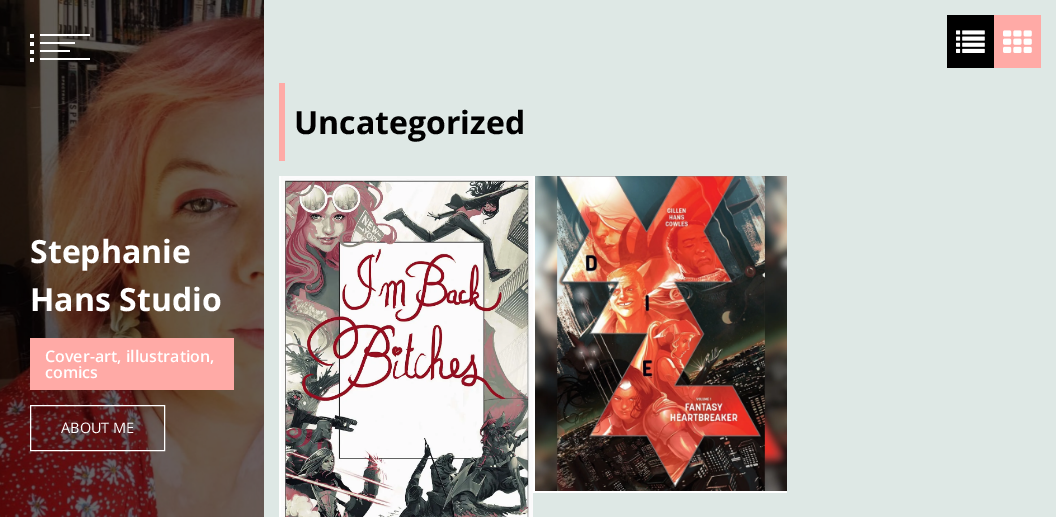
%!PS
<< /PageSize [1056 517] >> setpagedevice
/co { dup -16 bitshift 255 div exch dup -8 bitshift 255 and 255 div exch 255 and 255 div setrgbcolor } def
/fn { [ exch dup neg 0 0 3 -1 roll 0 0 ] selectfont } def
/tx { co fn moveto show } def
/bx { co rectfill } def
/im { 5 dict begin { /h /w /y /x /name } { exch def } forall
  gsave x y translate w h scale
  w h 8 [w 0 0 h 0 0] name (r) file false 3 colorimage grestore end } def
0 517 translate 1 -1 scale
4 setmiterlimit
0 0 1056 517 16#DEE8E5 bx
947 15 47 53 16#000000 bx
(media/1.raw) 956 30 29 23 im
994 15 47 53 16#FFAAA6 bx
(media/2.raw) 1003 30 29 23 im
279 83 6 78 16#FFAAA6 bx
279 176 2 341 16#FFFFFF bx
(media/3.raw) 281 176 252 341 im
(media/4.raw) 283 176 250 341 im
533 491 254 2 16#FFFFFF bx
533 176 2 317 16#FFFFFF bx
(media/5.raw) 535 176 252 315 im
(media/6.raw) 0 0 264 517 im
30 34 4 4 16#FFFFFF bx
40 34 50 2 16#FFFFFF bx
30 42 4 4 16#FFFFFF bx
40 42 35 2 16#FFFFFF bx
30 50 4 4 16#FFFFFF bx
40 50 30 2 16#FFFFFF bx
30 58 4 4 16#FFFFFF bx
40 58 50 2 16#FFFFFF bx
30 338 204 52 16#FFAAA6 bx
16#FFFFFF co
30.5 405.5 134 45 rectstroke
(Uncategorized) 294 134 /OpenSans-Bold 32 16#000000 tx
(Stephanie) 30 263 /OpenSans-Bold 32 16#FFFFFF tx
(Hans Studio) 30 311 /OpenSans-Bold 32 16#FFFFFF tx
(Cover-art, illustration,) 45 362 /OpenSans-SemiBold 16 16#FFFFFF tx
(comics) 45 378 /OpenSans-SemiBold 16 16#FFFFFF tx
(ABOUT ME) 61 433 /OpenSans-Regular 14.5 16#FFFFFF tx
showpage
